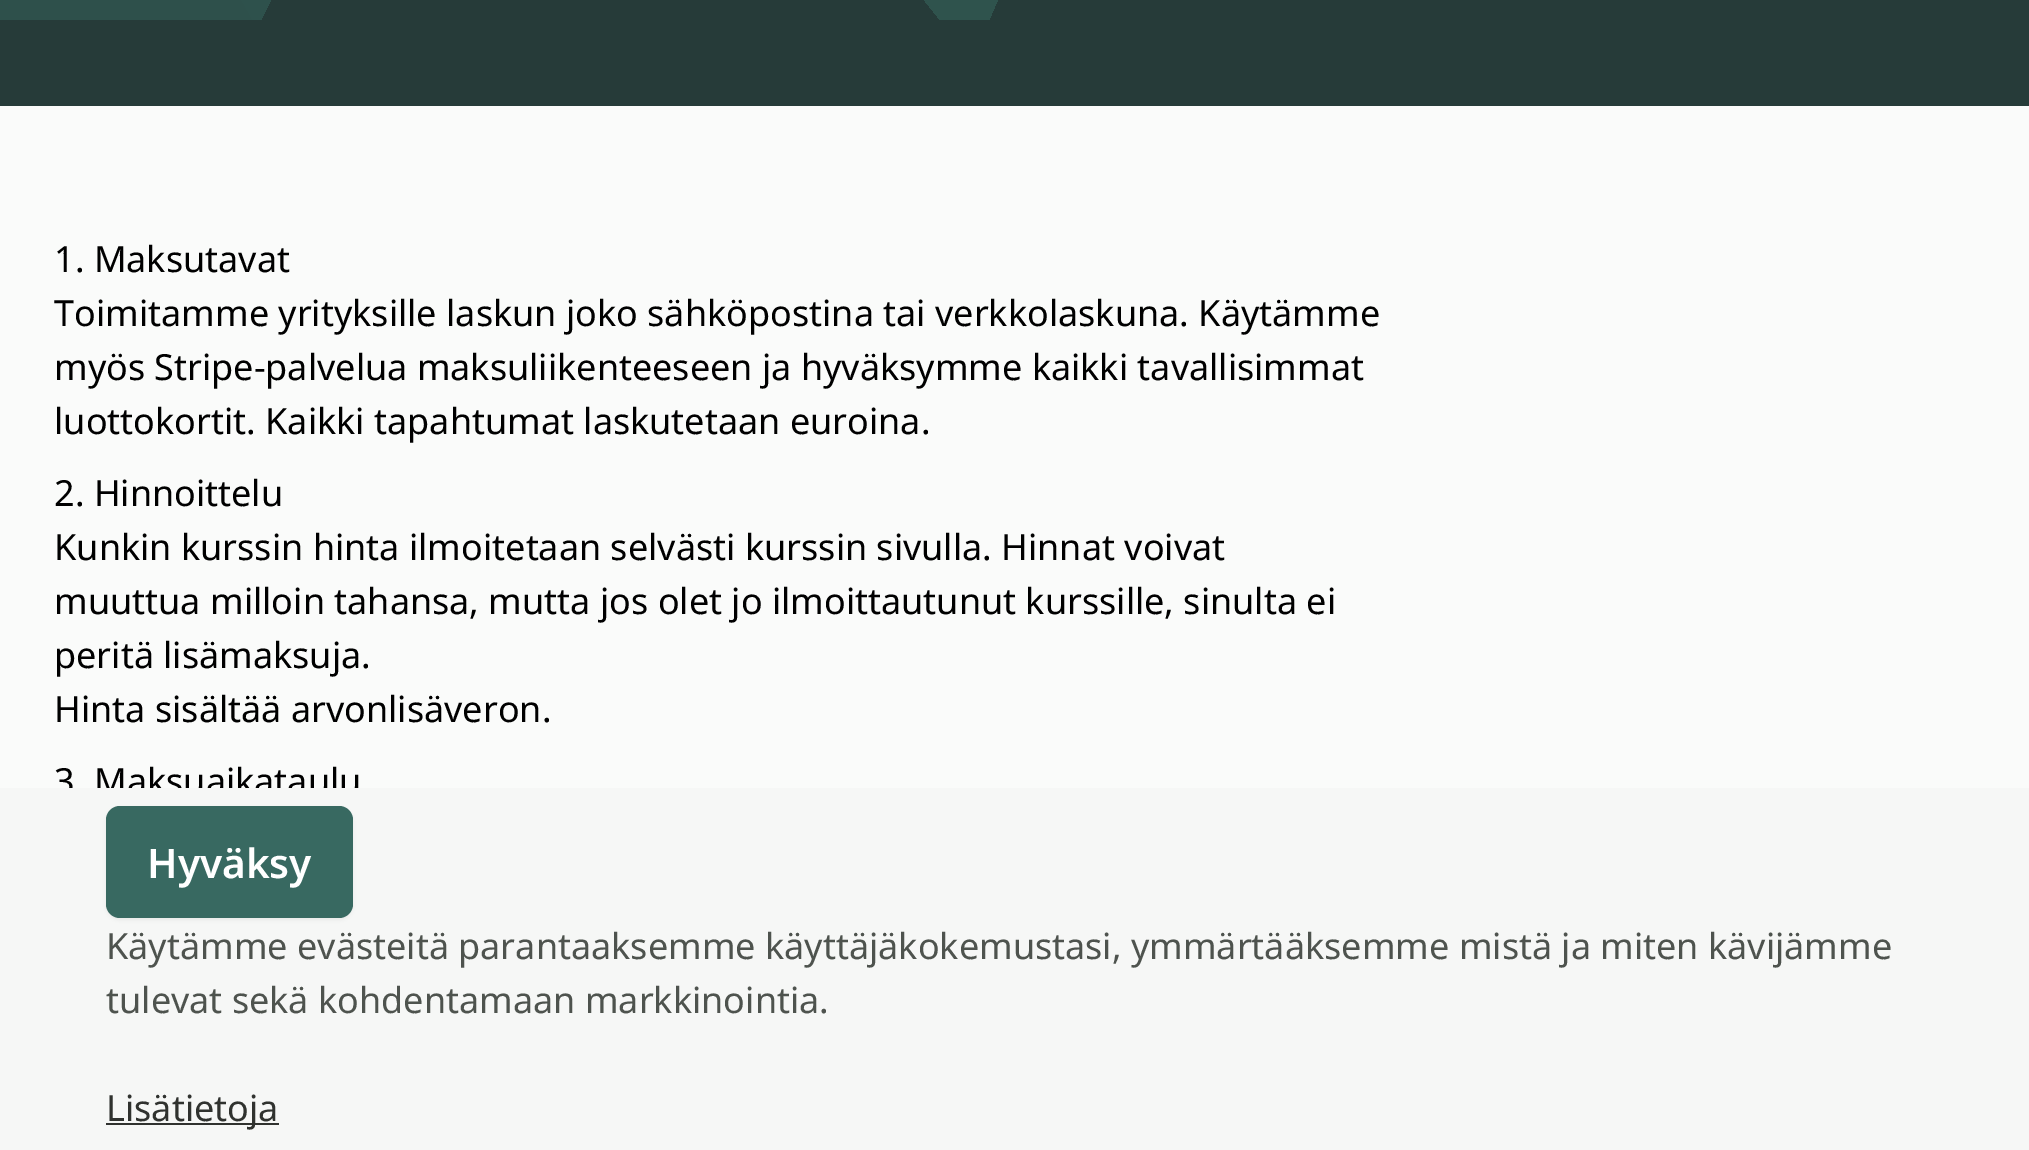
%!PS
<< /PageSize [2029 1150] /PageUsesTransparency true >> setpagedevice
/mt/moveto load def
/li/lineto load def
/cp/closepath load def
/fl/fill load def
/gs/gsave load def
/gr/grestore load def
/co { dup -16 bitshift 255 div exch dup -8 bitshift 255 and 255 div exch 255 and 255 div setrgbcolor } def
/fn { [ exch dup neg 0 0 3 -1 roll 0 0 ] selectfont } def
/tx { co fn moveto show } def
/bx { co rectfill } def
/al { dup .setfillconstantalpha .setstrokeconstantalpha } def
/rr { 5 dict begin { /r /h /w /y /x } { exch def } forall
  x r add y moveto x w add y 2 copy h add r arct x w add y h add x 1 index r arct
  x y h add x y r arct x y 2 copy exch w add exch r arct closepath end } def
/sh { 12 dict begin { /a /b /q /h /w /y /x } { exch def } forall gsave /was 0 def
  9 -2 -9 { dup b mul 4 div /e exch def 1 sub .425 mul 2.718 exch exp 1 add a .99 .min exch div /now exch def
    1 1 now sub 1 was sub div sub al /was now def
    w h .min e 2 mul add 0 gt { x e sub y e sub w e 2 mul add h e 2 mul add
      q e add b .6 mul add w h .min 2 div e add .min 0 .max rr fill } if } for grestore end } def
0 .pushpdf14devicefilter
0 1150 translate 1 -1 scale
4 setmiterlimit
0 0 2029 1150 16#FAFBFA bx
0 0 2029 106 16#263B39 bx
gs
0 0 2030 20 rectclip
gs 522 -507 mt 158 227 li -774 -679 li -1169 -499 li -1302 -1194 li -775 -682 li -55 -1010 li -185 -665 li -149 -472 li 70 -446 li 575 -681 li 992 -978 li 1114 -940 li 1180 -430 li 972 60 li cp clip newpath
<< /ShadingType 2 /ColorSpace /DeviceRGB /Coords [-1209 -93 1079 -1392] /Extend [true true] /Function << /FunctionType 2 /Domain [0 1] /C0 [.173 .294 .278] /C1 [.192 .341 .318] /N 1 >> >> shfill gr
gr
(1. Maksutavat) 54 272 /NotoSans-Regular 36 16#000000 tx
(Toimitamme yrityksille laskun joko sähköpostina tai verkkolaskuna. Käytämme) 54 326 /NotoSans-Regular 36 16#000000 tx
(myös Stripe-palvelua maksuliikenteeseen ja hyväksymme kaikki tavallisimmat) 54 380 /NotoSans-Regular 36 16#000000 tx
(luottokortit. Kaikki tapahtumat laskutetaan euroina.) 54 434 /NotoSans-Regular 36 16#000000 tx
(2. Hinnoittelu) 54 506 /NotoSans-Regular 36 16#000000 tx
(Kunkin kurssin hinta ilmoitetaan selvästi kurssin sivulla. Hinnat voivat) 54 560 /NotoSans-Regular 36 16#000000 tx
(muuttua milloin tahansa, mutta jos olet jo ilmoittautunut kurssille, sinulta ei) 54 614 /NotoSans-Regular 36 16#000000 tx
(peritä lisämaksuja.) 54 668 /NotoSans-Regular 36 16#000000 tx
(Hinta sisältää arvonlisäveron.) 54 722 /NotoSans-Regular 36 16#000000 tx
(3) 54 794 /NotoSans-Regular 36 16#000000 tx
(Maksuaikataulu) 94 794 /NotoSans-Regular 36 16#000000 tx
0 788 2029 362 16#F6F7F6 bx
16#000000 co
106 808 247 112 14 2 .05 sh
16#386961 co
106 806 247 112 14 rr fl
(Hyväksy) 147 878 /NotoSans-SemiBold 40.5 16#FFFFFF tx
(Käytämme evästeitä parantaaksemme käyttäjäkokemustasi, ymmärtääksemme mistä ja miten kävijämme) 106 959 /NotoSans-Regular 36 16#4E534E tx
(tulevat sekä kohdentamaan markkinointia.) 106 1013 /NotoSans-Regular 36 16#4E534E tx
106 1123 173 2 16#30322F bx
(Lisätietoja) 106 1121 /NotoSans-Regular 36 16#30322F tx
.poppdf14devicefilter showpage
